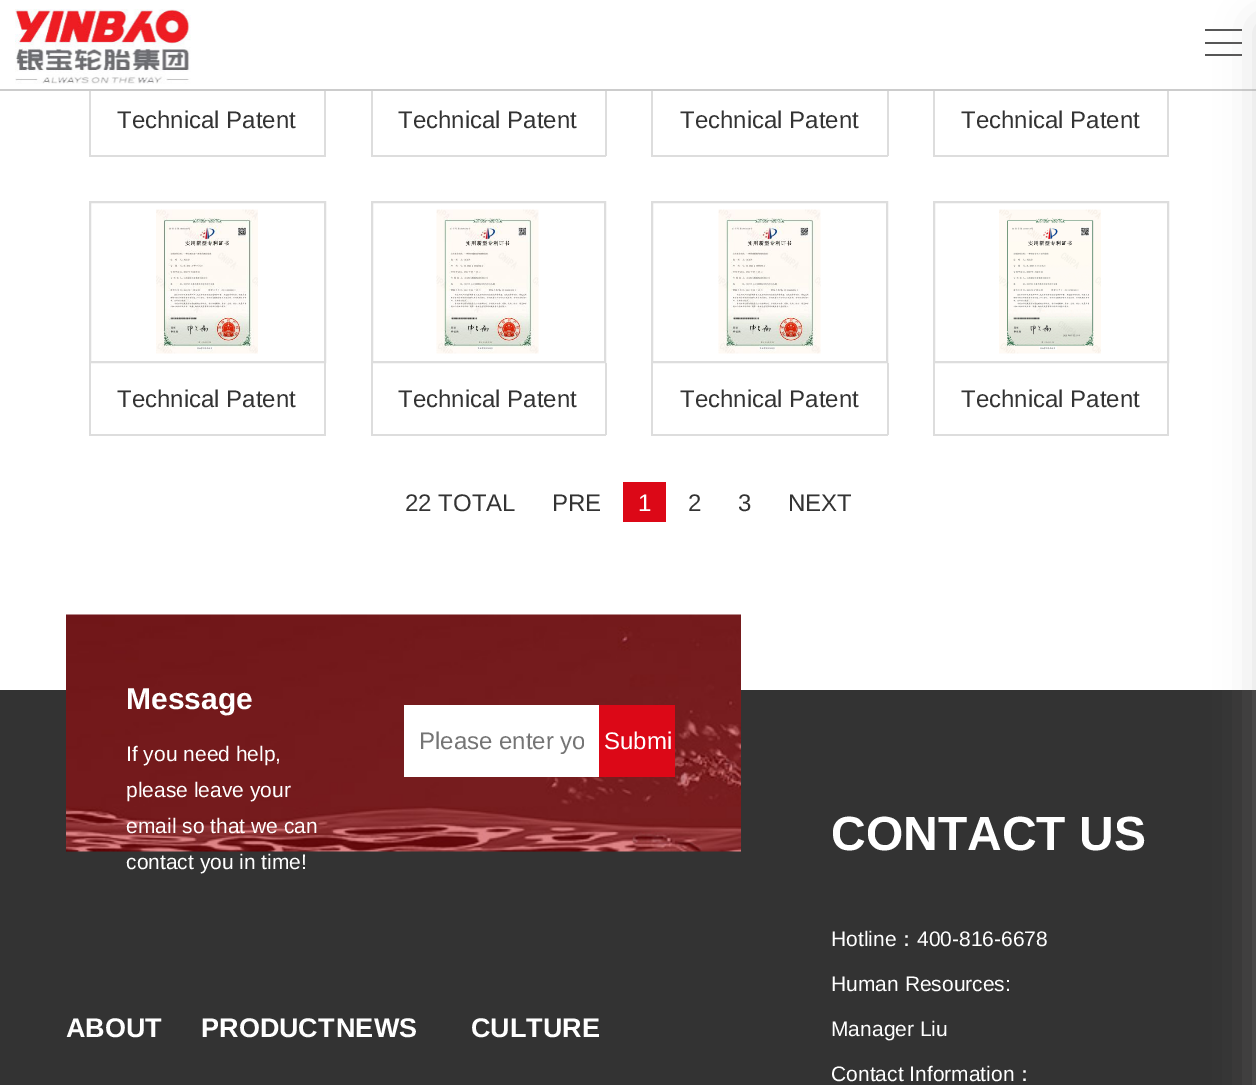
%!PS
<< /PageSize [1256 1085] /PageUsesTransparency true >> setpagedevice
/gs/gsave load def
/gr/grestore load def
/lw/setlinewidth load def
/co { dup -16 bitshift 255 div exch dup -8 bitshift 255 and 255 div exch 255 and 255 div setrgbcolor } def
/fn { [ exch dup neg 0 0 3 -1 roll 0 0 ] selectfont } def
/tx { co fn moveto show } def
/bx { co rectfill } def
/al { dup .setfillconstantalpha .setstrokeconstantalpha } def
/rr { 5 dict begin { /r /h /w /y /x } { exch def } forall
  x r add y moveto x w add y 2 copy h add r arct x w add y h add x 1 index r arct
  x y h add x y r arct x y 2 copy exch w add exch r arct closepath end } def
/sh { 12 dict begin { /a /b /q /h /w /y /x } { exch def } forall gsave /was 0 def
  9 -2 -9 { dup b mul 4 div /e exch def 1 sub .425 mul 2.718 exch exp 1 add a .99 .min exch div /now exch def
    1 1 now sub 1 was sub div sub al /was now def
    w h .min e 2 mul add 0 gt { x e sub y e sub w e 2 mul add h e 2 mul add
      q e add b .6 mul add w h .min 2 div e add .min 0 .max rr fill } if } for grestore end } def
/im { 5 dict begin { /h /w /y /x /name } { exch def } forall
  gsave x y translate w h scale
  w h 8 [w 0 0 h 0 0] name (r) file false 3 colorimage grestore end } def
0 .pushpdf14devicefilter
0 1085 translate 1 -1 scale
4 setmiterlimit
0 0 1256 1085 16#FFFFFF bx
324 84 2 72 16#DDDDDD bx
89 155 237 2 16#DDDDDD bx
89 84 2 72 16#DDDDDD bx
605 84 2 72 16#DDDDDD bx
371 155 235 2 16#DDDDDD bx
371 84 2 72 16#DDDDDD bx
887 84 2 72 16#DDDDDD bx
651 155 237 2 16#DDDDDD bx
651 84 2 72 16#DDDDDD bx
1167 84 2 72 16#DDDDDD bx
933 155 236 2 16#DDDDDD bx
933 84 2 72 16#DDDDDD bx
0 89 1256 2 16#CCCCCC bx
1205 42 37 2 16#555555 bx
1205 29 37 2 16#555555 bx
1205 54 37 2 16#555555 bx
0 690 1256 395 16#333333 bx
16#A7A5A5 co
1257 23 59 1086 0 20 .38 sh
89 84 1080 5 16#FFFFFF bx
(media/1.raw) 15 9 176 75 im
16#DDDDDD co
2 lw
90 202 235 160 rectstroke
(media/2.raw) 156 209 102 145 im
324 363 2 72 16#DDDDDD bx
89 434 237 2 16#DDDDDD bx
89 363 2 72 16#DDDDDD bx
372 202 233 160 rectstroke
(media/3.raw) 436 209 103 145 im
605 363 2 72 16#DDDDDD bx
371 434 235 2 16#DDDDDD bx
371 363 2 72 16#DDDDDD bx
652 202 235 160 rectstroke
(media/4.raw) 718 209 103 145 im
887 363 2 72 16#DDDDDD bx
651 434 237 2 16#DDDDDD bx
651 363 2 72 16#DDDDDD bx
934 202 234 160 rectstroke
(media/5.raw) 999 209 102 145 im
1167 363 2 72 16#DDDDDD bx
933 434 236 2 16#DDDDDD bx
933 363 2 72 16#DDDDDD bx
623 482 43 40 16#DC0817 bx
(media/6.raw) 66 614 675 238 im
404 705 195 72 16#FFFFFF bx
599 705 76 72 16#DC0817 bx
(Technical Patent) 117 128 /LiberationSans-Regular 24 16#333333 tx
(Technical Patent) 398 128 /LiberationSans-Regular 24 16#333333 tx
(Technical Patent) 680 128 /LiberationSans-Regular 24 16#333333 tx
(Technical Patent) 961 128 /LiberationSans-Regular 24 16#333333 tx
(Technical Patent) 117 407 /LiberationSans-Regular 24 16#333333 tx
(Technical Patent) 398 407 /LiberationSans-Regular 24 16#333333 tx
(Technical Patent) 680 407 /LiberationSans-Regular 24 16#333333 tx
(Technical Patent) 961 407 /LiberationSans-Regular 24 16#333333 tx
(22 TOTAL) 405 511 /LiberationSans-Regular 24 16#333333 tx
(PRE) 552 511 /LiberationSans-Regular 24 16#333333 tx
(1) 638 511 /LiberationSans-Regular 24 16#FFFFFF tx
(2) 688 511 /LiberationSans-Regular 24 16#333333 tx
(3) 738 511 /LiberationSans-Regular 24 16#333333 tx
(NEXT) 788 511 /LiberationSans-Regular 24 16#333333 tx
(Message) 126 709 /LiberationSans-Bold 30 16#FFFFFF tx
(If you need help,) 126 761 /LiberationSans-Regular 21 16#FFFFFF tx
(please leave your) 126 797 /LiberationSans-Regular 21 16#FFFFFF tx
(email so that we can) 126 833 /LiberationSans-Regular 21 16#FFFFFF tx
(contact you in time!) 126 869 /LiberationSans-Regular 21 16#FFFFFF tx
gs
419 728 165 27 rectclip
(Please enter yo) 419 749 /LiberationSans-Regular 24 16#757575 tx
gr
(Submi) 604 749 /LiberationSans-Regular 24 16#FFFFFF tx
(ABOUT) 66 1037 /LiberationSans-Bold 27 16#FFFFFF tx
(PRODUCT) 201 1037 /LiberationSans-Bold 27 16#FFFFFF tx
(NEWS) 336 1037 /LiberationSans-Bold 27 16#FFFFFF tx
(CULTURE) 471 1037 /LiberationSans-Bold 27 16#FFFFFF tx
(CONTACT US) 831 850 /LiberationSans-Bold 48 16#FFFFFF tx
(Hotline) 831 946 /LiberationSans-Regular 21 16#FFFFFF tx
(：) 896 946 /WenQuanYiZenHei-Medium 21 16#FFFFFF tx
(400-816-6678) 917 946 /LiberationSans-Regular 21 16#FFFFFF tx
(Human Resources:) 831 991 /LiberationSans-Regular 21 16#FFFFFF tx
(Manager Liu) 831 1036 /LiberationSans-Regular 21 16#FFFFFF tx
(Contact Information) 831 1081 /LiberationSans-Regular 21 16#FFFFFF tx
(：) 1014 1081 /WenQuanYiZenHei-Medium 21 16#FFFFFF tx
.poppdf14devicefilter showpage
